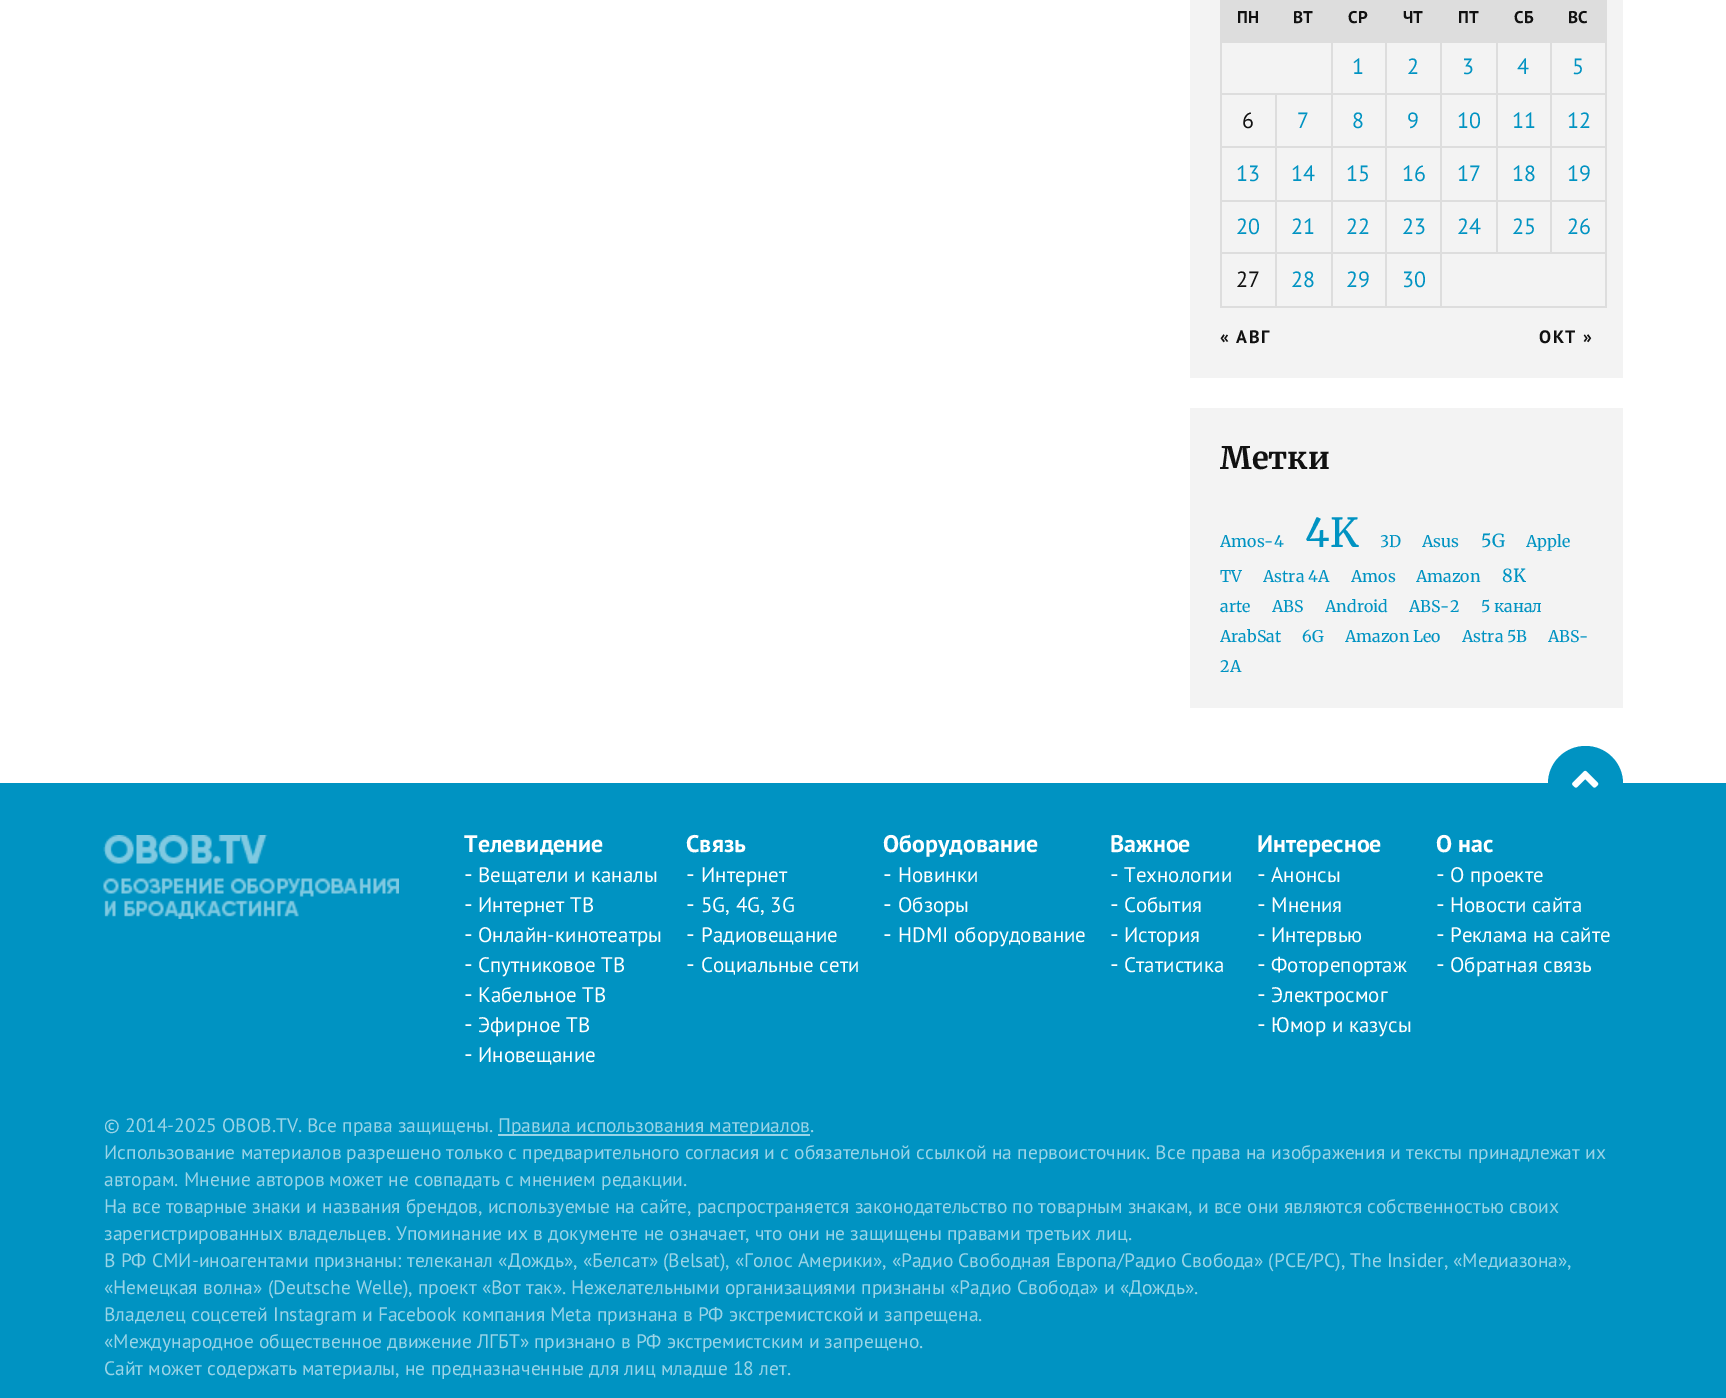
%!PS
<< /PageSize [1726 1398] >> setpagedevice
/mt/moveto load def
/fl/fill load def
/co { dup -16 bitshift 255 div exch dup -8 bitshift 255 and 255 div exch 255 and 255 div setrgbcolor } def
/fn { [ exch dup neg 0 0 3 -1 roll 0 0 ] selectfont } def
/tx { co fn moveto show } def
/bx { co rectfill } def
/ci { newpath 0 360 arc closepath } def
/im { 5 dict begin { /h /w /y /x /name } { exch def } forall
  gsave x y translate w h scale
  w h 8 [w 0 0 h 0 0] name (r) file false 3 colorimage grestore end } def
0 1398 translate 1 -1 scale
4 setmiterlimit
0 0 1726 1398 16#FFFFFF bx
1190 0 433 378 16#F3F3F3 bx
1222 0 385 41 16#DDDDDD bx
1605 41 2 267 16#DDDDDD bx
1550 252 57 2 16#DDDDDD bx
1550 200 2 54 16#DDDDDD bx
1550 200 57 2 16#DDDDDD bx
1550 146 2 55 16#DDDDDD bx
1550 146 57 2 16#DDDDDD bx
1550 93 2 54 16#DDDDDD bx
1550 93 57 2 16#DDDDDD bx
1550 41 2 54 16#DDDDDD bx
1496 252 55 2 16#DDDDDD bx
1496 200 2 54 16#DDDDDD bx
1496 200 55 2 16#DDDDDD bx
1496 146 2 55 16#DDDDDD bx
1496 146 55 2 16#DDDDDD bx
1496 93 2 54 16#DDDDDD bx
1496 93 55 2 16#DDDDDD bx
1496 41 2 54 16#DDDDDD bx
1440 306 167 2 16#DDDDDD bx
1440 252 2 56 16#DDDDDD bx
1440 252 57 2 16#DDDDDD bx
1440 200 2 54 16#DDDDDD bx
1440 200 57 2 16#DDDDDD bx
1440 146 2 55 16#DDDDDD bx
1440 146 57 2 16#DDDDDD bx
1440 93 2 54 16#DDDDDD bx
1440 93 57 2 16#DDDDDD bx
1440 41 2 54 16#DDDDDD bx
1385 306 57 2 16#DDDDDD bx
1385 252 2 56 16#DDDDDD bx
1385 252 57 2 16#DDDDDD bx
1385 200 2 54 16#DDDDDD bx
1385 200 57 2 16#DDDDDD bx
1385 146 2 55 16#DDDDDD bx
1385 146 57 2 16#DDDDDD bx
1385 93 2 54 16#DDDDDD bx
1385 93 57 2 16#DDDDDD bx
1385 41 2 54 16#DDDDDD bx
1331 306 55 2 16#DDDDDD bx
1331 252 2 56 16#DDDDDD bx
1331 252 55 2 16#DDDDDD bx
1331 200 2 54 16#DDDDDD bx
1331 200 55 2 16#DDDDDD bx
1331 146 2 55 16#DDDDDD bx
1331 146 55 2 16#DDDDDD bx
1331 93 2 54 16#DDDDDD bx
1331 93 55 2 16#DDDDDD bx
1331 41 2 54 16#DDDDDD bx
1275 306 57 2 16#DDDDDD bx
1275 252 2 56 16#DDDDDD bx
1275 252 57 2 16#DDDDDD bx
1275 200 2 54 16#DDDDDD bx
1275 200 57 2 16#DDDDDD bx
1275 146 2 55 16#DDDDDD bx
1275 146 57 2 16#DDDDDD bx
1275 93 2 54 16#DDDDDD bx
1220 306 57 2 16#DDDDDD bx
1220 252 2 56 16#DDDDDD bx
1220 252 57 2 16#DDDDDD bx
1220 200 2 54 16#DDDDDD bx
1220 200 57 2 16#DDDDDD bx
1220 146 2 55 16#DDDDDD bx
1220 146 57 2 16#DDDDDD bx
1220 93 2 54 16#DDDDDD bx
1220 93 112 2 16#DDDDDD bx
1220 41 2 54 16#DDDDDD bx
1220 41 387 2 16#DDDDDD bx
1220 0 2 42 16#DDDDDD bx
1190 408 433 300 16#F3F3F3 bx
0 783 1726 615 16#0093C2 bx
1585.5 783.5 37.5 ci fl
(media/1.raw) 1572 770 27 18 im
(media/2.raw) 103 835 296 84 im
498 1134 312 2 16#99D4E7 bx
(ПН) 1237 23 /PTSans-Bold 17 16#111111 tx
(ВТ) 1293 23 /PTSans-Bold 17 16#111111 tx
(СР) 1348 23 /PTSans-Bold 17 16#111111 tx
(ЧТ) 1403 23 /PTSans-Bold 17 16#111111 tx
(ПТ) 1458 23 /PTSans-Bold 17 16#111111 tx
(СБ) 1514 23 /PTSans-Bold 17 16#111111 tx
(ВС) 1568 23 /PTSans-Bold 17 16#111111 tx
(1) 1352 74 /PTSans-Regular 22 16#0093C2 tx
(2) 1407 74 /PTSans-Regular 22 16#0093C2 tx
(3) 1462 74 /PTSans-Regular 22 16#0093C2 tx
(4) 1517 74 /PTSans-Regular 22 16#0093C2 tx
(5) 1572 74 /PTSans-Regular 22 16#0093C2 tx
(6) 1242 128 /PTSans-Regular 22 16#111111 tx
(7) 1297 128 /PTSans-Regular 22 16#0093C2 tx
(8) 1352 128 /PTSans-Regular 22 16#0093C2 tx
(9) 1407 128 /PTSans-Regular 22 16#0093C2 tx
(10) 1457 128 /PTSans-Regular 22 16#0093C2 tx
(11) 1512 128 /PTSans-Regular 22 16#0093C2 tx
(12) 1567 128 /PTSans-Regular 22 16#0093C2 tx
(13) 1236 181 /PTSans-Regular 22 16#0093C2 tx
(14) 1291 181 /PTSans-Regular 22 16#0093C2 tx
(15) 1346 181 /PTSans-Regular 22 16#0093C2 tx
(16) 1402 181 /PTSans-Regular 22 16#0093C2 tx
(17) 1457 181 /PTSans-Regular 22 16#0093C2 tx
(18) 1512 181 /PTSans-Regular 22 16#0093C2 tx
(19) 1567 181 /PTSans-Regular 22 16#0093C2 tx
(20) 1236 234 /PTSans-Regular 22 16#0093C2 tx
(21) 1291 234 /PTSans-Regular 22 16#0093C2 tx
(22) 1346 234 /PTSans-Regular 22 16#0093C2 tx
(23) 1402 234 /PTSans-Regular 22 16#0093C2 tx
(24) 1457 234 /PTSans-Regular 22 16#0093C2 tx
(25) 1512 234 /PTSans-Regular 22 16#0093C2 tx
(26) 1567 234 /PTSans-Regular 22 16#0093C2 tx
(27) 1236 287 /PTSans-Regular 22 16#111111 tx
(28) 1291 287 /PTSans-Regular 22 16#0093C2 tx
(29) 1346 287 /PTSans-Regular 22 16#0093C2 tx
(30) 1402 287 /PTSans-Regular 22 16#0093C2 tx
/PTSans-Bold 18 fn
16#111111 co
1220 343 mt 1.5 0 (« АВГ) ashow
1539 343 mt 1.5 0 (ОКТ ») ashow
(Метки) 1220 469 /Merriweather-Bold 31 16#111111 tx
(Amos-4) 1220 547 /Merriweather-Regular 16 16#0093C2 tx
(4K) 1305 547 /Merriweather-Regular 40 16#0093C2 tx
(3D) 1380 547 /Merriweather-Regular 16 16#0093C2 tx
(Asus) 1422 547 /Merriweather-Regular 16 16#0093C2 tx
(5G) 1481 547 /Merriweather-Regular 18 16#0093C2 tx
(Apple) 1526 547 /Merriweather-Regular 16 16#0093C2 tx
(TV) 1220 582 /Merriweather-Regular 16 16#0093C2 tx
(Astra 4A) 1263 582 /Merriweather-Regular 16 16#0093C2 tx
(Amos) 1351 582 /Merriweather-Regular 16 16#0093C2 tx
(Amazon) 1416 582 /Merriweather-Regular 16 16#0093C2 tx
(8K) 1502 582 /Merriweather-Regular 18 16#0093C2 tx
(arte) 1220 612 /Merriweather-Regular 16 16#0093C2 tx
(ABS) 1272 612 /Merriweather-Regular 16 16#0093C2 tx
(Android) 1325 612 /Merriweather-Regular 16 16#0093C2 tx
(ABS-2) 1409 612 /Merriweather-Regular 16 16#0093C2 tx
(5 канал) 1481 612 /Merriweather-Regular 16 16#0093C2 tx
(ArabSat) 1220 642 /Merriweather-Regular 16 16#0093C2 tx
(6G) 1302 642 /Merriweather-Regular 16 16#0093C2 tx
(Amazon Leo) 1345 642 /Merriweather-Regular 16 16#0093C2 tx
(Astra 5B) 1462 642 /Merriweather-Regular 16 16#0093C2 tx
(ABS-) 1548 642 /Merriweather-Regular 16 16#0093C2 tx
(2A) 1220 672 /Merriweather-Regular 16 16#0093C2 tx
(Телевидение) 464 852 /PTSans-Bold 24 16#FFFFFF tx
(-) 464 882 /PTSans-Regular 24 16#FFFFFF tx
(Вещатели и каналы) 478 882 /PTSans-Regular 21 16#FFFFFF tx
(-) 464 912 /PTSans-Regular 24 16#FFFFFF tx
(Интернет ТВ) 478 912 /PTSans-Regular 21 16#FFFFFF tx
(-) 464 942 /PTSans-Regular 24 16#FFFFFF tx
(Онлайн-кинотеатры) 478 942 /PTSans-Regular 21 16#FFFFFF tx
(-) 464 972 /PTSans-Regular 24 16#FFFFFF tx
(Спутниковое ТВ) 478 972 /PTSans-Regular 21 16#FFFFFF tx
(-) 464 1002 /PTSans-Regular 24 16#FFFFFF tx
(Кабельное ТВ) 478 1002 /PTSans-Regular 21 16#FFFFFF tx
(-) 464 1032 /PTSans-Regular 24 16#FFFFFF tx
(Эфирное ТВ) 478 1032 /PTSans-Regular 21 16#FFFFFF tx
(-) 464 1062 /PTSans-Regular 24 16#FFFFFF tx
(Иновещание) 478 1062 /PTSans-Regular 21 16#FFFFFF tx
(Связь) 686 852 /PTSans-Bold 24 16#FFFFFF tx
(-) 686 882 /PTSans-Regular 24 16#FFFFFF tx
(Интернет) 701 882 /PTSans-Regular 21 16#FFFFFF tx
(-) 686 912 /PTSans-Regular 24 16#FFFFFF tx
(5G, 4G, 3G) 701 912 /PTSans-Regular 21 16#FFFFFF tx
(-) 686 942 /PTSans-Regular 24 16#FFFFFF tx
(Радиовещание) 701 942 /PTSans-Regular 21 16#FFFFFF tx
(-) 686 972 /PTSans-Regular 24 16#FFFFFF tx
(Социальные сети) 701 972 /PTSans-Regular 21 16#FFFFFF tx
(Оборудование) 883 852 /PTSans-Bold 24 16#FFFFFF tx
(-) 883 882 /PTSans-Regular 24 16#FFFFFF tx
(Новинки) 898 882 /PTSans-Regular 21 16#FFFFFF tx
(-) 883 912 /PTSans-Regular 24 16#FFFFFF tx
(Обзоры) 898 912 /PTSans-Regular 21 16#FFFFFF tx
(-) 883 942 /PTSans-Regular 24 16#FFFFFF tx
(HDMI оборудование) 898 942 /PTSans-Regular 21 16#FFFFFF tx
(Важное) 1110 852 /PTSans-Bold 24 16#FFFFFF tx
(-) 1110 882 /PTSans-Regular 24 16#FFFFFF tx
(Технологии) 1124 882 /PTSans-Regular 21 16#FFFFFF tx
(-) 1110 912 /PTSans-Regular 24 16#FFFFFF tx
(События) 1124 912 /PTSans-Regular 21 16#FFFFFF tx
(-) 1110 942 /PTSans-Regular 24 16#FFFFFF tx
(История) 1124 942 /PTSans-Regular 21 16#FFFFFF tx
(-) 1110 972 /PTSans-Regular 24 16#FFFFFF tx
(Статистика) 1124 972 /PTSans-Regular 21 16#FFFFFF tx
(Интересное) 1257 852 /PTSans-Bold 24 16#FFFFFF tx
(-) 1257 882 /PTSans-Regular 24 16#FFFFFF tx
(Анонсы) 1271 882 /PTSans-Regular 21 16#FFFFFF tx
(-) 1257 912 /PTSans-Regular 24 16#FFFFFF tx
(Мнения) 1271 912 /PTSans-Regular 21 16#FFFFFF tx
(-) 1257 942 /PTSans-Regular 24 16#FFFFFF tx
(Интервью) 1271 942 /PTSans-Regular 21 16#FFFFFF tx
(-) 1257 972 /PTSans-Regular 24 16#FFFFFF tx
(Фоторепортаж) 1271 972 /PTSans-Regular 21 16#FFFFFF tx
(-) 1257 1002 /PTSans-Regular 24 16#FFFFFF tx
(Электросмог) 1271 1002 /PTSans-Regular 21 16#FFFFFF tx
(-) 1257 1032 /PTSans-Regular 24 16#FFFFFF tx
(Юмор и казусы) 1271 1032 /PTSans-Regular 21 16#FFFFFF tx
(О нас) 1436 852 /PTSans-Bold 24 16#FFFFFF tx
(-) 1436 882 /PTSans-Regular 24 16#FFFFFF tx
(О проекте) 1450 882 /PTSans-Regular 21 16#FFFFFF tx
(-) 1436 912 /PTSans-Regular 24 16#FFFFFF tx
(Новости сайта) 1450 912 /PTSans-Regular 21 16#FFFFFF tx
(-) 1436 942 /PTSans-Regular 24 16#FFFFFF tx
(Реклама на сайте) 1450 942 /PTSans-Regular 21 16#FFFFFF tx
(-) 1436 972 /PTSans-Regular 24 16#FFFFFF tx
(Обратная связь) 1450 972 /PTSans-Regular 21 16#FFFFFF tx
(© 2014-2025 OBOB.TV. Все права защищены.) 104 1132 /PTSans-Regular 19.5 16#99D4E7 tx
(Правила использования материалов.) 498 1132 /PTSans-Regular 19.5 16#99D4E7 tx
(Использование материалов разрешено только с предварительного согласия и с обязательной ссылкой на первоисточник. Все права на изображения и тексты принадлежат их) 104 1159 /PTSans-Regular 19.5 16#99D4E7 tx
(авторам. Мнение авторов может не совпадать с мнением редакции.) 104 1186 /PTSans-Regular 19.5 16#99D4E7 tx
(На все товарные знаки и названия брендов, используемые на сайте, распространяется законодательство по товарным знакам, и все они являются собственностью своих) 104 1213 /PTSans-Regular 19.5 16#99D4E7 tx
(зарегистрированных владельцев. Упоминание их в документе не означает, что они не защищены правами третьих лиц.) 104 1240 /PTSans-Regular 19.5 16#99D4E7 tx
(В РФ СМИ-иноагентами признаны: телеканал «Дождь», «Белсат» \(Belsat\), «Голос Америки», «Радио Свободная Европа/Радио Свобода» \(PCE/PC\), The Insider, «Медиазона»,) 104 1267 /PTSans-Regular 19.5 16#99D4E7 tx
(«Немецкая волна» \(Deutsche Welle\), проект «Вот так». Нежелательными организациями признаны «Радио Свобода» и «Дождь».) 104 1294 /PTSans-Regular 19.5 16#99D4E7 tx
(Владелец соцсетей Instagram и Facebook компания Metа признана в РФ экстремистской и запрещена.) 104 1321 /PTSans-Regular 19.5 16#99D4E7 tx
(«Международное общественное движение ЛГБТ» признано в РФ экстремистским и запрещено.) 104 1348 /PTSans-Regular 19.5 16#99D4E7 tx
(Сайт может содержать материалы, не предназначенные для лиц младше 18 лет.) 104 1375 /PTSans-Regular 19.5 16#99D4E7 tx
showpage
